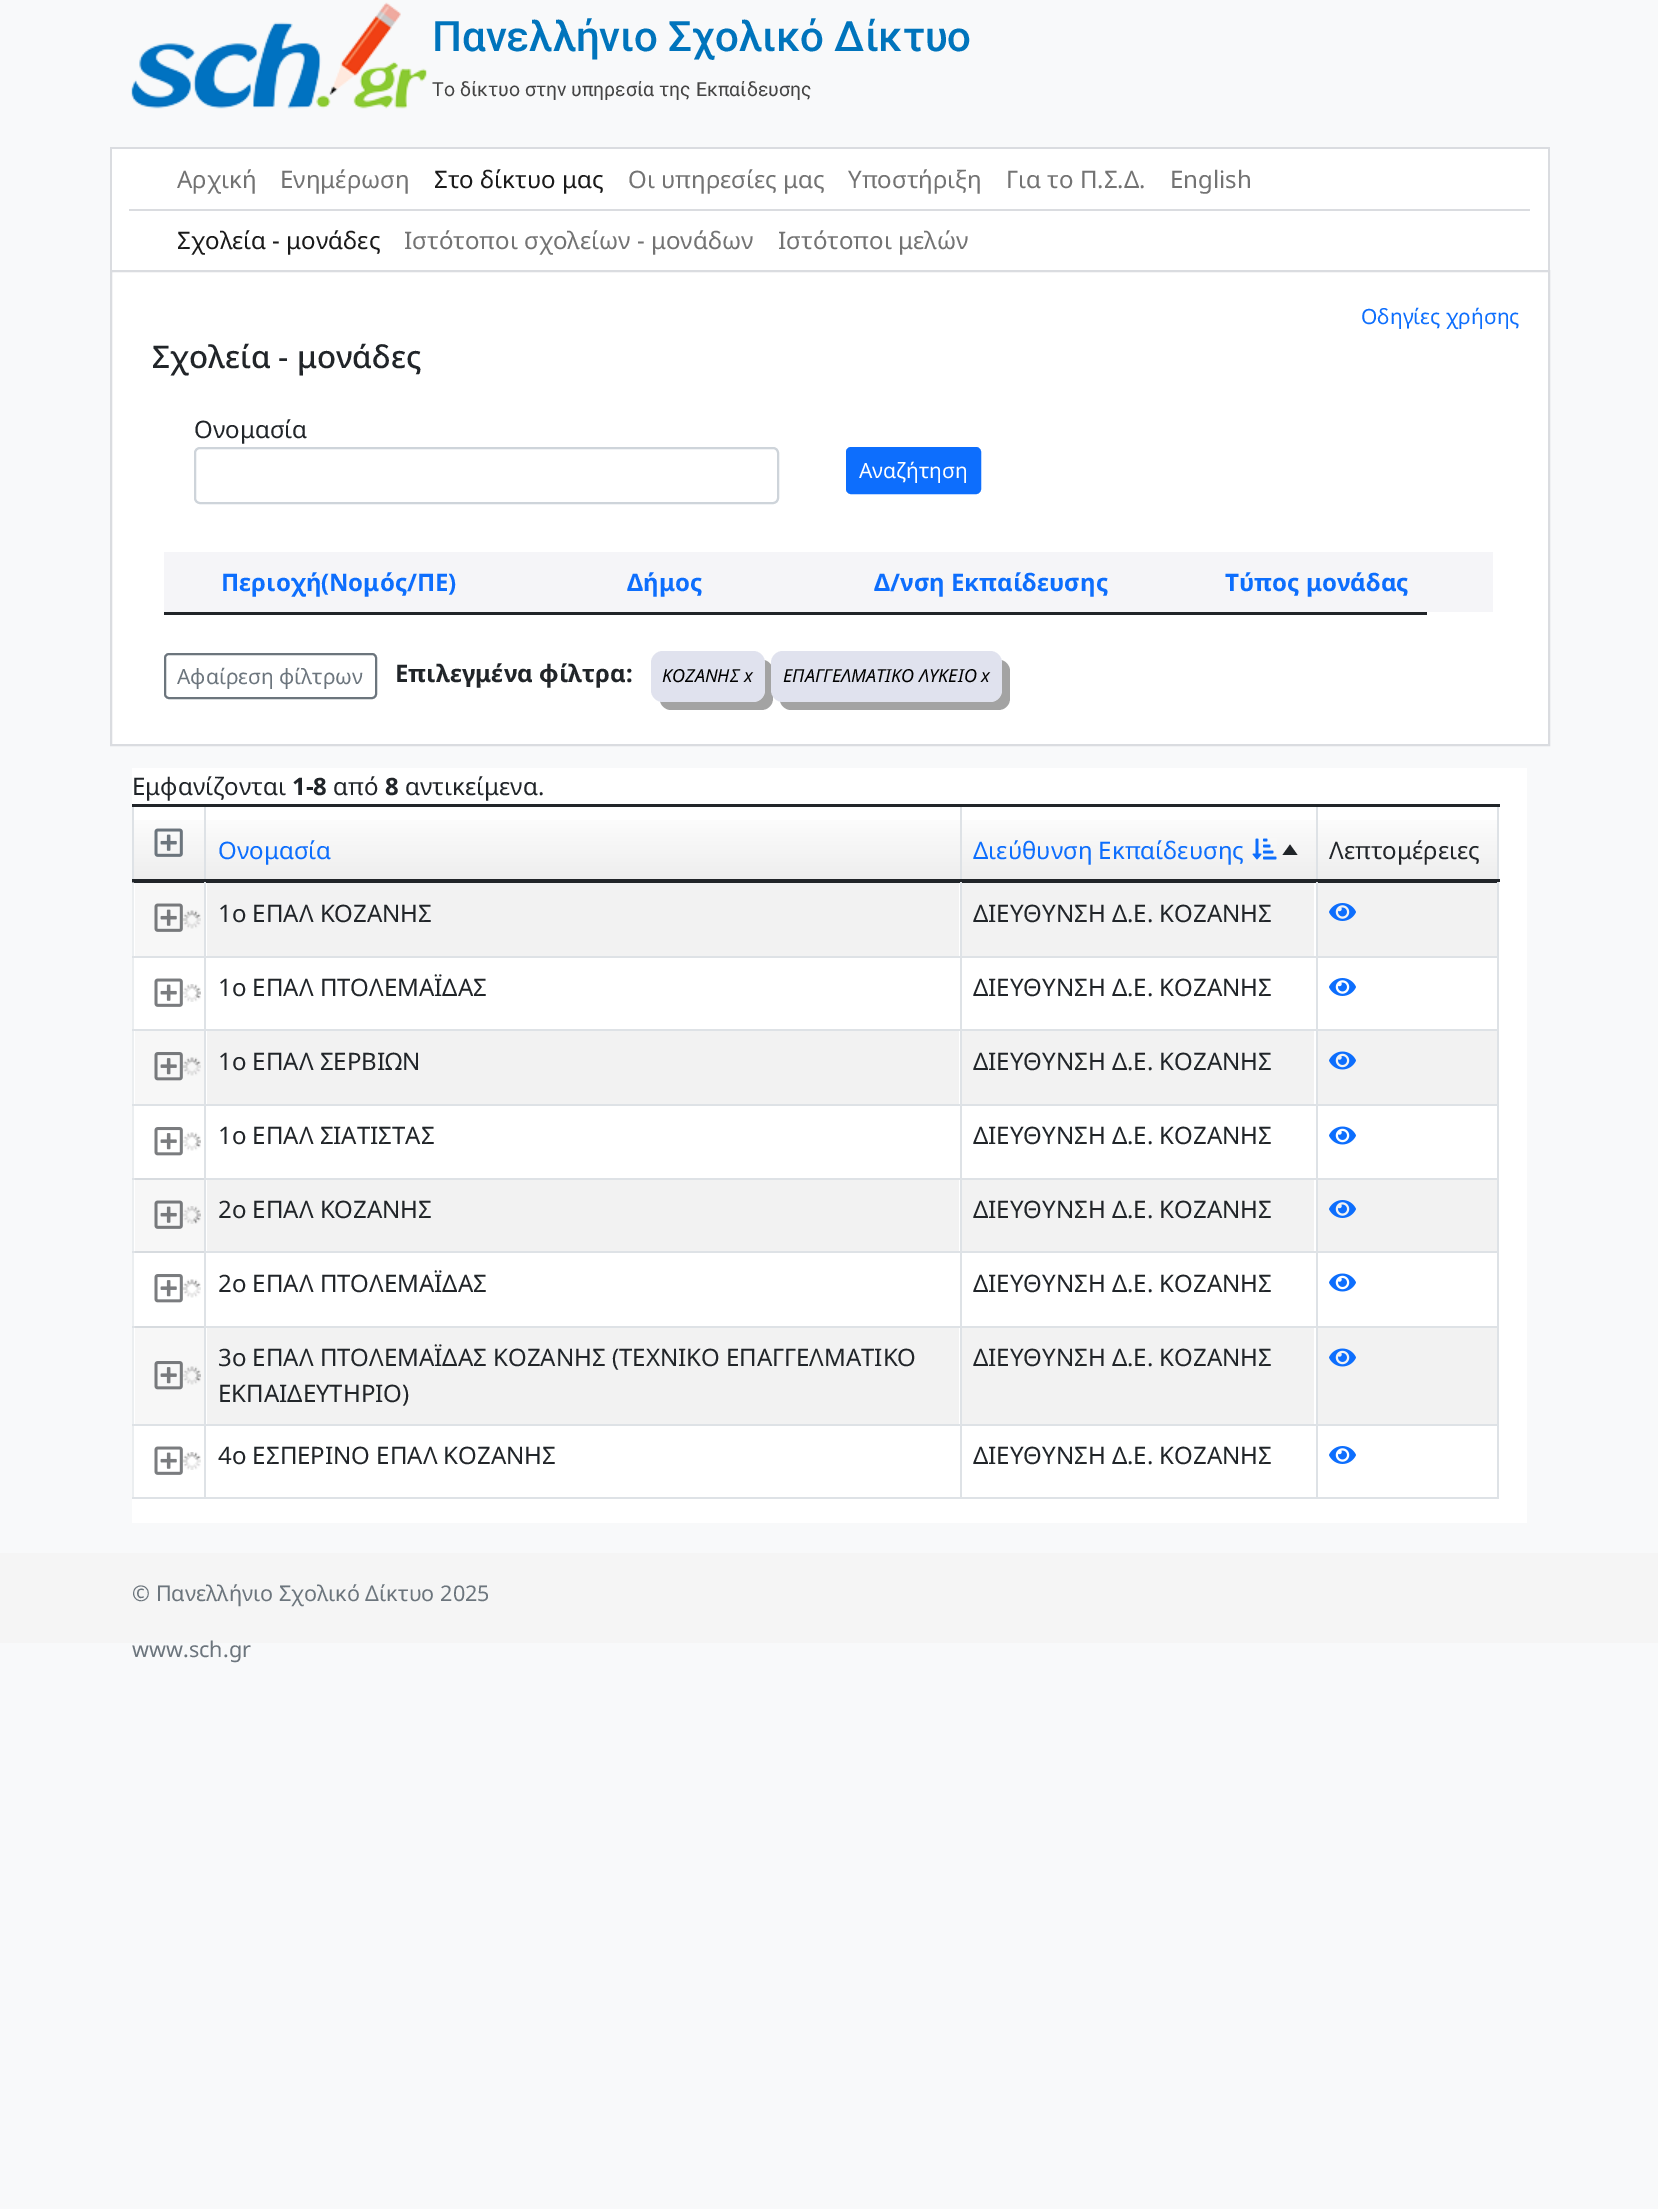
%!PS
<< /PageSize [1658 2209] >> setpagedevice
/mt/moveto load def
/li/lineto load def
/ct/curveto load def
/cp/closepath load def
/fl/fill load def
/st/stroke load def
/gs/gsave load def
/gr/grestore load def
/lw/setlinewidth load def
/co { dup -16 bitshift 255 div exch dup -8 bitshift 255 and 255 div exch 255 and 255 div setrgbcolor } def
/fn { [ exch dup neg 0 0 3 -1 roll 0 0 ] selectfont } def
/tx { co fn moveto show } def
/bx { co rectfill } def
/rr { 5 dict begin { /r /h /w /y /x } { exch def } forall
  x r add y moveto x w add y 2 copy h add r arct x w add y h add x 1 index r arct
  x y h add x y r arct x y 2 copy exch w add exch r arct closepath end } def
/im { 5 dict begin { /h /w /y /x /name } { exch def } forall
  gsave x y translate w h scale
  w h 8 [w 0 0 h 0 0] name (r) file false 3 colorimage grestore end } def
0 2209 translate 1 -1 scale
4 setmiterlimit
0 0 1658 2209 16#F8F9FA bx
(media/1.raw) 130 2 298 107 im
112 149 1436 121 16#FFFFFF bx
110 147 1440 2 16#DADCE0 bx
1548 147 2 123 16#DADCE0 bx
110 147 2 123 16#DADCE0 bx
129 209 1401 2 16#DADCE0 bx
16#FFFFFF co
111 271 mt 1549 271 li 1549 745 li 111 745 li cp gs fl gr
16#DADCE0 co
2 lw
st
16#CED4DA co
195 448 583 55 5 rr st
16#0D6EFD co
847 448 133 45 4 rr gs fl gr
st
164 552 1329 60 16#F5F5F8 bx
164 612 1263 3 16#212529 bx
16#6C757D co
165 654 211 44 4 rr st
16#A3A3A3 co
660 701 mt 661 706 666 710 671 710 ct 761 710 li 768 710 773 705 773 698 ct 773 671 li 773 666 769 661 764 660 ct 765 663 li 765 690 li 765 697 760 702 753 702 ct 663 702 li cp fl
16#E0E2EE co
651 651 114 51 12 rr fl
16#A3A3A3 co
780 701 mt 781 706 786 710 791 710 ct 998 710 li 1005 710 1010 705 1010 698 ct 1010 671 li 1010 666 1006 661 1001 660 ct 1002 663 li 1002 690 li 1002 697 997 702 990 702 ct 783 702 li cp fl
16#E0E2EE co
771 651 231 51 12 rr fl
132 768 1395 755 16#FFFFFF bx
135 1328 69 96 16#F7F7F7 bx
135 1180 69 71 16#F7F7F7 bx
135 1031 69 73 16#F7F7F7 bx
135 883 69 73 16#F7F7F7 bx
132 881 2 618 16#EBEEF0 bx
gs 134 820 mt 1497 820 li 1497 879 li 134 879 li cp clip newpath
<< /ShadingType 2 /ColorSpace /DeviceRGB /Coords [816 809 816 881] /Extend [true true] /Function << /FunctionType 2 /Domain [0 1] /C0 [1 1 1] /C1 [.933 .933 .933] /N 1 >> >> shfill gr
132 804 2 78 16#DEE2E6 bx
132 882 1367 1 16#212529 bx
132 956 1367 2 16#DEE2E6 bx
132 1029 1367 2 16#DEE2E6 bx
132 1104 1367 2 16#DEE2E6 bx
132 1178 1367 2 16#DEE2E6 bx
132 1251 1367 2 16#DEE2E6 bx
132 1326 1367 2 16#DEE2E6 bx
132 1424 1367 2 16#DEE2E6 bx
132 1497 1367 2 16#DEE2E6 bx
204 804 2 695 16#DEE2E6 bx
960 804 2 695 16#DEE2E6 bx
1497 804 2 695 16#DEE2E6 bx
1316 804 2 695 16#DEE2E6 bx
132 804 1368 3 16#212529 bx
(media/2.raw) 154 828 29 29 im
(media/3.raw) 1252 838 25 22 im
1297.5 855 mt 1282.5 855 li 1290 844.5 li cp fl
132 879 1368 3 16#212529 bx
132 882 2 1 16#92969A bx
(media/4.raw) 183 910 18 19 im
(media/5.raw) 154 903 29 29 im
207 883 752 73 16#F2F2F2 bx
962 883 352 73 16#F2F2F2 bx
1318 883 179 73 16#F2F2F2 bx
(media/6.raw) 1329 903 27 18 im
(media/7.raw) 183 984 18 18 im
(media/8.raw) 154 978 29 29 im
(media/9.raw) 1329 978 27 18 im
(media/4.raw) 183 1057 18 19 im
(media/10.raw) 154 1052 29 29 im
207 1031 752 73 16#F2F2F2 bx
962 1031 352 73 16#F2F2F2 bx
1318 1031 179 73 16#F2F2F2 bx
(media/11.raw) 1329 1051 27 19 im
135 1178 69 2 16#D7DBDF bx
(media/12.raw) 183 1132 18 19 im
(media/13.raw) 154 1127 29 29 im
(media/14.raw) 1329 1126 27 19 im
135 1251 69 2 16#D7DBDF bx
(media/15.raw) 183 1206 18 18 im
(media/5.raw) 154 1200 29 29 im
207 1180 752 71 16#F2F2F2 bx
962 1180 352 71 16#F2F2F2 bx
1318 1180 179 71 16#F2F2F2 bx
(media/6.raw) 1329 1200 27 18 im
135 1326 69 2 16#D7DBDF bx
(media/16.raw) 183 1279 18 19 im
(media/13.raw) 154 1274 29 29 im
(media/14.raw) 1329 1273 27 19 im
207 1328 752 96 16#F2F2F2 bx
962 1328 352 96 16#F2F2F2 bx
1318 1328 179 96 16#F2F2F2 bx
(media/11.raw) 1329 1348 27 19 im
(media/17.raw) 183 1366 18 19 im
(media/10.raw) 154 1361 29 29 im
(media/18.raw) 183 1452 18 18 im
(media/8.raw) 154 1446 29 29 im
(media/9.raw) 1329 1446 27 18 im
0 1553 1658 90 16#F5F5F5 bx
(Πανελλήνιο Σχολικό Δίκτυο) 432 51 /Roboto-Medium 42 16#0074BC tx
(Το δίκτυο στην υπηρεσία της Εκπαίδευσης) 432 96 /Roboto-Regular 19.5 16#444444 tx
(Αρχική) 177 188 /NotoSans-Regular 24 16#737373 tx
(Ενημέρωση) 280 188 /NotoSans-Regular 24 16#737373 tx
(Στο δίκτυο μας) 434 188 /NotoSans-Regular 24 16#1A1A1A tx
(Οι υπηρεσίες μας) 628 188 /NotoSans-Regular 24 16#737373 tx
(Υποστήριξη) 848 188 /NotoSans-Regular 24 16#737373 tx
(Για το Π.Σ.Δ.) 1006 188 /NotoSans-Regular 24 16#737373 tx
(English) 1170 188 /NotoSans-Regular 24 16#737373 tx
(Σχολεία - μονάδες) 177 249 /NotoSans-Regular 24 16#1A1A1A tx
(Ιστότοποι σχολείων - μονάδων) 404 249 /NotoSans-Regular 24 16#737373 tx
(Ιστότοποι μελών) 778 249 /NotoSans-Regular 24 16#737373 tx
(Οδηγίες χρήσης) 1361 324 /NotoSans-Regular 21 16#0D6EFD tx
(Σχολεία - μονάδες) 152 368 /NotoSans-Medium 31.25 16#212529 tx
(Ονομασία) 194 438 /NotoSans-Regular 24 16#212529 tx
(Αναζήτηση) 859 478 /NotoSans-Regular 21 16#FFFFFF tx
(Περιοχή\(Νομός/ΠΕ\)) 221 591 /NotoSans-Bold 24 16#0D6EFD tx
(Δήμος) 627 591 /NotoSans-Bold 24 16#0D6EFD tx
(Δ/νση Εκπαίδευσης) 874 591 /NotoSans-Bold 24 16#0D6EFD tx
(Τύπος μονάδας) 1225 591 /NotoSans-Bold 24 16#0D6EFD tx
(Αφαίρεση φίλτρων) 177 684 /NotoSans-Regular 21 16#6C757D tx
(Επιλεγμένα φίλτρα:) 395 682 /NotoSans-Bold 24 16#212529 tx
(ΚΟΖΑΝΗΣ x) 662 682 /NotoSans-Italic 18 16#000000 tx
(ΕΠΑΓΓΕΛΜΑΤΙΚΟ ΛΥΚΕΙΟ x) 783 682 /NotoSans-Italic 18 16#000000 tx
(Εμφανίζονται) 132 795 /NotoSans-Regular 24 16#212529 tx
(1-8) 292 795 /NotoSans-Bold 24 16#212529 tx
(από) 333 795 /NotoSans-Regular 24 16#212529 tx
(8) 385 795 /NotoSans-Bold 24 16#212529 tx
(αντικείμενα.) 405 795 /NotoSans-Regular 24 16#212529 tx
(Ονομασία) 218 859 /NotoSans-Regular 24 16#0D6EFD tx
(Διεύθυνση Εκπαίδευσης) 973 859 /NotoSans-Regular 24 16#0D6EFD tx
(Λεπτομέρειες) 1329 859 /NotoSans-Regular 24 16#212529 tx
(1ο ΕΠΑΛ ΚΟΖΑΝΗΣ) 218 922 /NotoSans-Regular 24 16#212529 tx
(ΔΙΕΥΘΥΝΣΗ Δ.Ε. ΚΟΖΑΝΗΣ) 973 922 /NotoSans-Regular 24 16#212529 tx
(1ο ΕΠΑΛ ΠΤΟΛΕΜΑΪΔΑΣ) 218 996 /NotoSans-Regular 24 16#212529 tx
(ΔΙΕΥΘΥΝΣΗ Δ.Ε. ΚΟΖΑΝΗΣ) 973 996 /NotoSans-Regular 24 16#212529 tx
(1ο ΕΠΑΛ ΣΕΡΒΙΩΝ) 218 1070 /NotoSans-Regular 24 16#212529 tx
(ΔΙΕΥΘΥΝΣΗ Δ.Ε. ΚΟΖΑΝΗΣ) 973 1070 /NotoSans-Regular 24 16#212529 tx
(1ο ΕΠΑΛ ΣΙΑΤΙΣΤΑΣ) 218 1144 /NotoSans-Regular 24 16#212529 tx
(ΔΙΕΥΘΥΝΣΗ Δ.Ε. ΚΟΖΑΝΗΣ) 973 1144 /NotoSans-Regular 24 16#212529 tx
(2ο ΕΠΑΛ ΚΟΖΑΝΗΣ) 218 1218 /NotoSans-Regular 24 16#212529 tx
(ΔΙΕΥΘΥΝΣΗ Δ.Ε. ΚΟΖΑΝΗΣ) 973 1218 /NotoSans-Regular 24 16#212529 tx
(2ο ΕΠΑΛ ΠΤΟΛΕΜΑΪΔΑΣ) 218 1292 /NotoSans-Regular 24 16#212529 tx
(ΔΙΕΥΘΥΝΣΗ Δ.Ε. ΚΟΖΑΝΗΣ) 973 1292 /NotoSans-Regular 24 16#212529 tx
(3ο ΕΠΑΛ ΠΤΟΛΕΜΑΪΔΑΣ ΚΟΖΑΝΗΣ \(ΤΕΧΝΙΚΟ ΕΠΑΓΓΕΛΜΑΤΙΚΟ) 218 1366 /NotoSans-Regular 24 16#212529 tx
(ΕΚΠΑΙΔΕΥΤΗΡΙΟ\)) 218 1402 /NotoSans-Regular 24 16#212529 tx
(ΔΙΕΥΘΥΝΣΗ Δ.Ε. ΚΟΖΑΝΗΣ) 973 1366 /NotoSans-Regular 24 16#212529 tx
(4ο ΕΣΠΕΡΙΝΟ ΕΠΑΛ ΚΟΖΑΝΗΣ) 218 1464 /NotoSans-Regular 24 16#212529 tx
(ΔΙΕΥΘΥΝΣΗ Δ.Ε. ΚΟΖΑΝΗΣ) 973 1464 /NotoSans-Regular 24 16#212529 tx
(© Πανελλήνιο Σχολικό Δίκτυο 2025) 132 1601 /NotoSans-Regular 21.6 16#6C757D tx
(www.sch.gr) 132 1657 /NotoSans-Regular 21.6 16#6C757D tx
showpage
